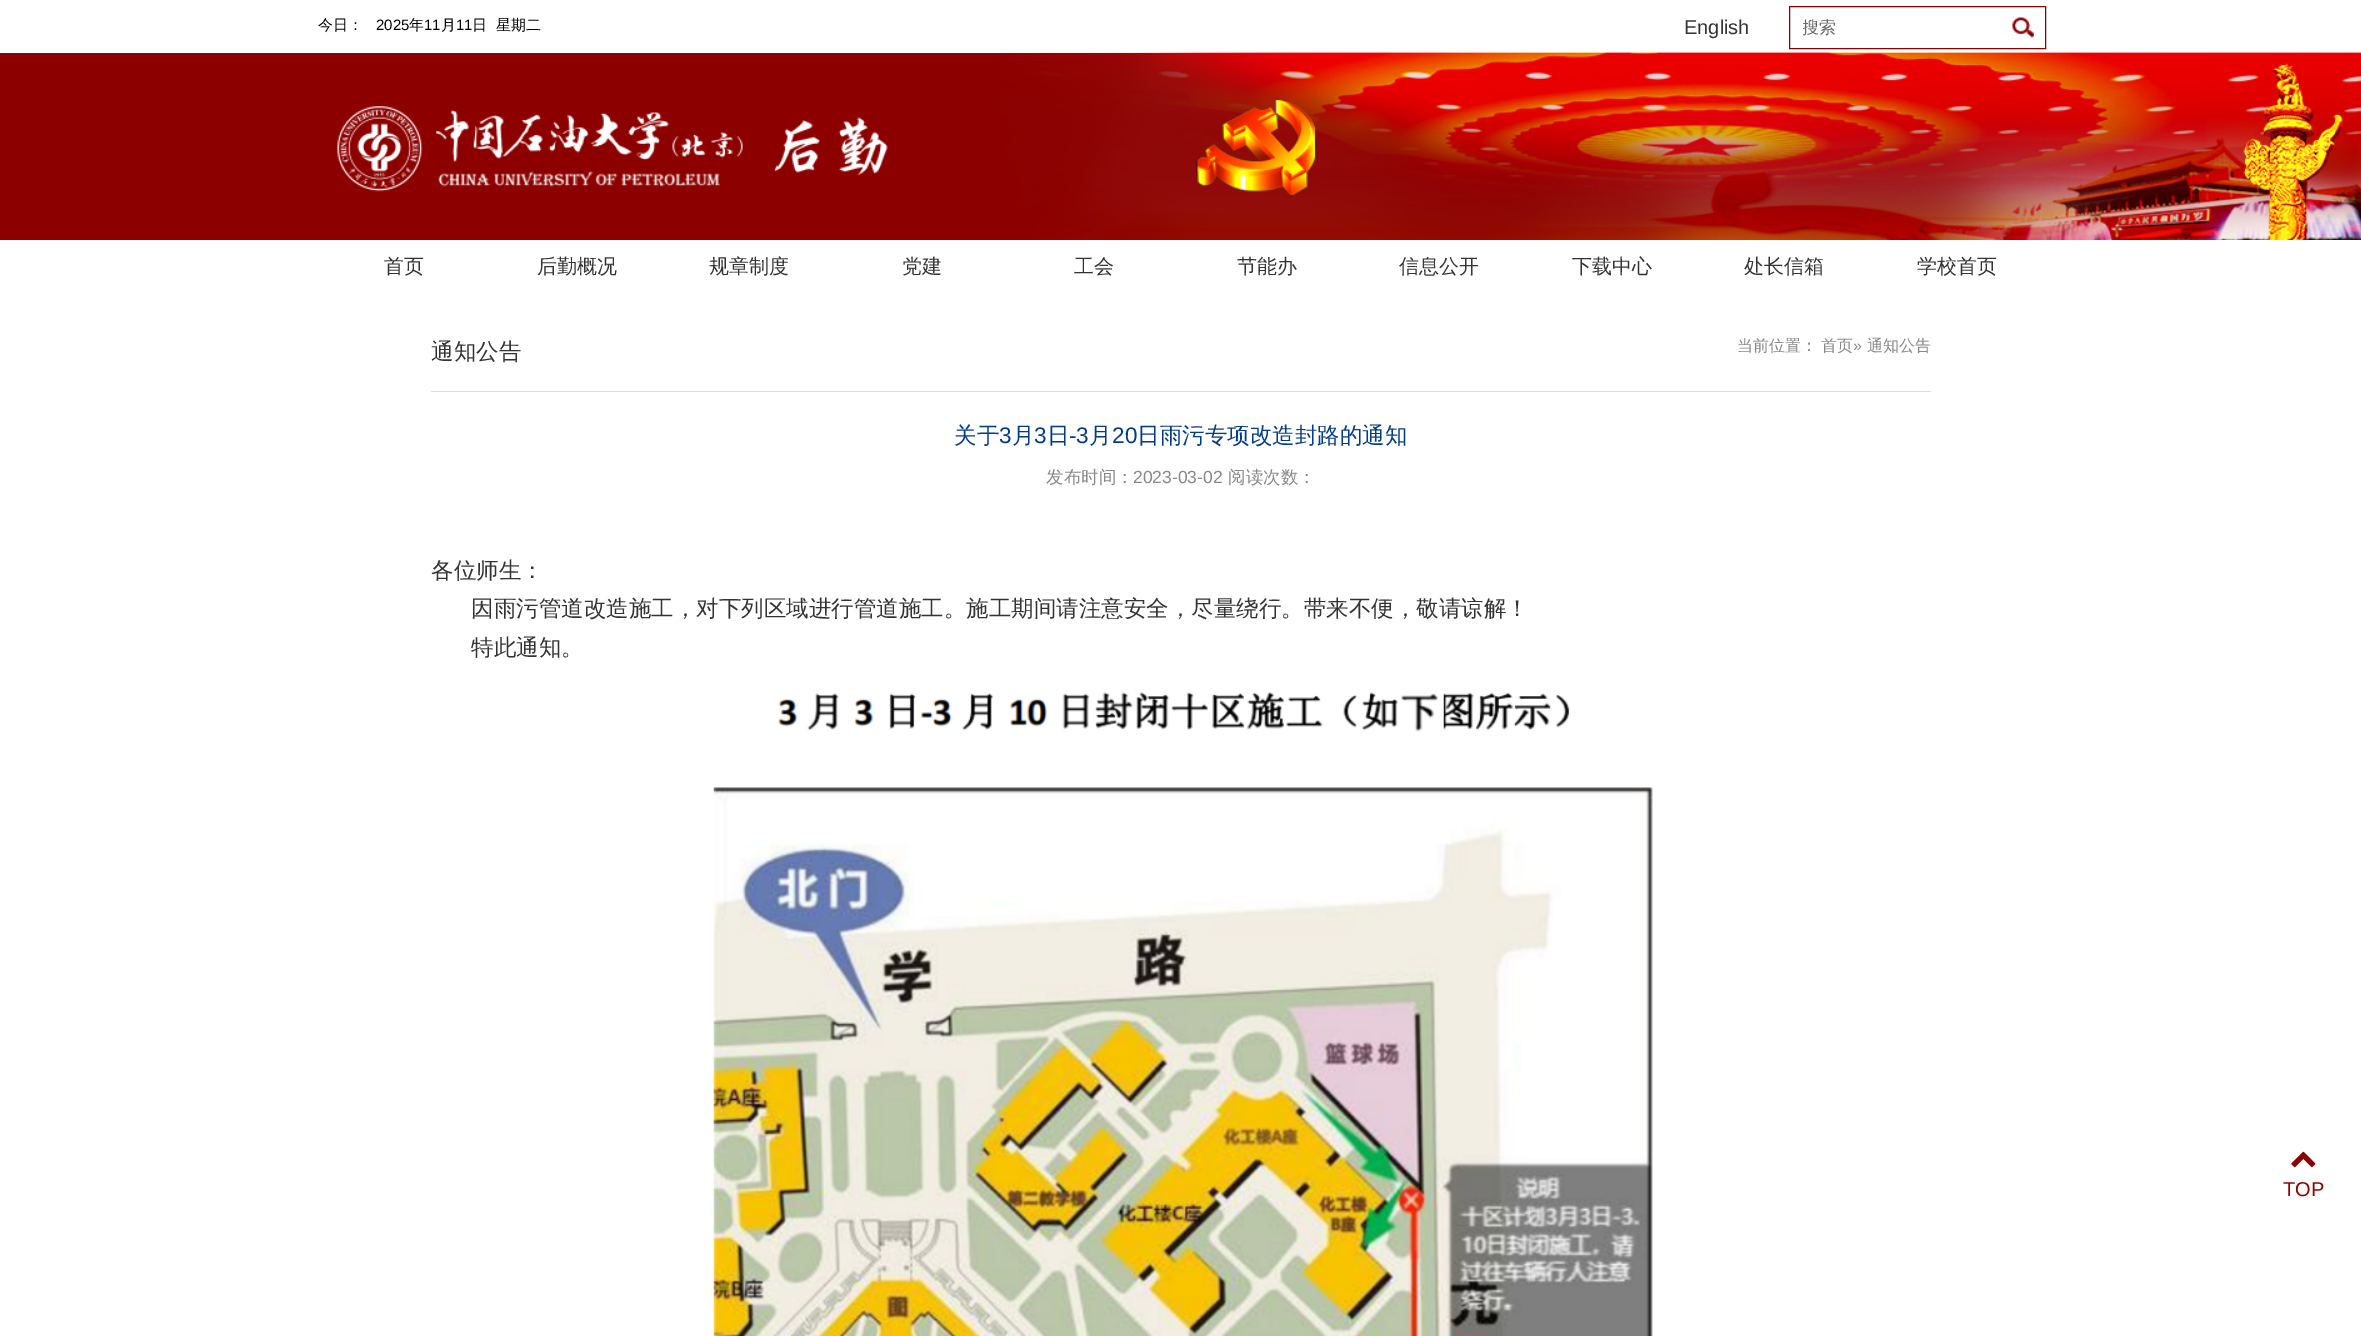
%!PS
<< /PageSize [2361 1336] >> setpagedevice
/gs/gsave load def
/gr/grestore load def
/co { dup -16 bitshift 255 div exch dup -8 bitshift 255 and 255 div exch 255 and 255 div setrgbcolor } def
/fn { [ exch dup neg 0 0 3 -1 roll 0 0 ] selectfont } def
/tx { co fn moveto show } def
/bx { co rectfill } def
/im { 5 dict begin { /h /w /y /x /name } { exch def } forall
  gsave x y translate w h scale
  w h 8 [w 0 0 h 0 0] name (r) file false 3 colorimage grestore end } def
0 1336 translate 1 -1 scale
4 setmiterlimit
0 0 2361 1336 16#FFFFFF bx
16#8C0000 co
1789.5 6.5 256 42 rectstroke
(media/1.raw) 2012 17 22 21 im
0 53 2361 187 16#8C0000 bx
(media/2.raw) 999 52 1362 188 im
(media/3.raw) 337 106 551 86 im
431 391 1500 1 16#DDDDDD bx
(media/4.raw) 713 692 940 644 im
(media/5.raw) 2291 1151 25 17 im
(今日：) 318 30 /WenQuanYiZenHei-Medium 15 16#000000 tx
(2025) 376 30 /LiberationSans-Regular 15 16#000000 tx
(年) 409 30 /WenQuanYiZenHei-Medium 15 16#000000 tx
(11) 424 30 /LiberationSans-Regular 15 16#000000 tx
(月) 441 30 /WenQuanYiZenHei-Medium 15 16#000000 tx
(11) 456 30 /LiberationSans-Regular 15 16#000000 tx
(日) 472 30 /WenQuanYiZenHei-Medium 15 16#000000 tx
(星期二) 496 30 /WenQuanYiZenHei-Medium 15 16#000000 tx
(English) 1684 34 /LiberationSans-Regular 20 16#333333 tx
gs
1803 9 240 37 rectclip
(搜索) 1802 33 /WenQuanYiZenHei-Medium 17 16#666666 tx
gr
(首页) 384 273 /WenQuanYiZenHei-Medium 20 16#333333 tx
(后勤概况) 537 273 /WenQuanYiZenHei-Medium 20 16#333333 tx
(规章制度) 709 273 /WenQuanYiZenHei-Medium 20 16#333333 tx
(党建) 902 273 /WenQuanYiZenHei-Medium 20 16#333333 tx
(工会) 1074 273 /WenQuanYiZenHei-Medium 20 16#333333 tx
(节能办) 1237 273 /WenQuanYiZenHei-Medium 20 16#333333 tx
(信息公开) 1399 273 /WenQuanYiZenHei-Medium 20 16#333333 tx
(下载中心) 1572 273 /WenQuanYiZenHei-Medium 20 16#333333 tx
(处长信箱) 1744 273 /WenQuanYiZenHei-Medium 20 16#333333 tx
(学校首页) 1917 273 /WenQuanYiZenHei-Medium 20 16#333333 tx
(通知公告) 431 359 /WenQuanYiZenHei-Medium 22.5 16#333333 tx
(当前位置：) 1737 351 /WenQuanYiZenHei-Medium 16 16#888888 tx
(首页) 1821 351 /WenQuanYiZenHei-Medium 16 16#888888 tx
(») 1853 351 /LiberationSans-Regular 16 16#888888 tx
(通知公告) 1867 351 /WenQuanYiZenHei-Medium 16 16#888888 tx
(关于) 954 443 /WenQuanYiZenHei-Medium 22.5 16#023B87 tx
(3) 999 443 /LiberationSans-Regular 22.5 16#023B87 tx
(月) 1012 443 /WenQuanYiZenHei-Medium 22.5 16#023B87 tx
(3) 1034 443 /LiberationSans-Regular 22.5 16#023B87 tx
(日) 1047 443 /WenQuanYiZenHei-Medium 22.5 16#023B87 tx
(-3) 1069 443 /LiberationSans-Regular 22.5 16#023B87 tx
(月) 1089 443 /WenQuanYiZenHei-Medium 22.5 16#023B87 tx
(20) 1112 443 /LiberationSans-Regular 22.5 16#023B87 tx
(日雨污专项改造封路的通知) 1137 443 /WenQuanYiZenHei-Medium 22.5 16#023B87 tx
(发布时间：) 1046 483 /WenQuanYiZenHei-Medium 17.5 16#888888 tx
(2023-03-02) 1133 483 /LiberationSans-Regular 17.5 16#888888 tx
(阅读次数：) 1228 483 /WenQuanYiZenHei-Medium 17.5 16#888888 tx
(各位师生：) 431 578 /WenQuanYiZenHei-Medium 22.5 16#333333 tx
(因雨污管道改造施工，对下列区域进行管道施工。施工期间请注意安全，尽量绕行。带来不便，敬请谅解！) 471 616 /WenQuanYiZenHei-Medium 22.5 16#333333 tx
(特此通知。) 471 655 /WenQuanYiZenHei-Medium 22.5 16#333333 tx
(TOP) 2283 1196 /LiberationSans-Regular 20 16#8C0000 tx
showpage
